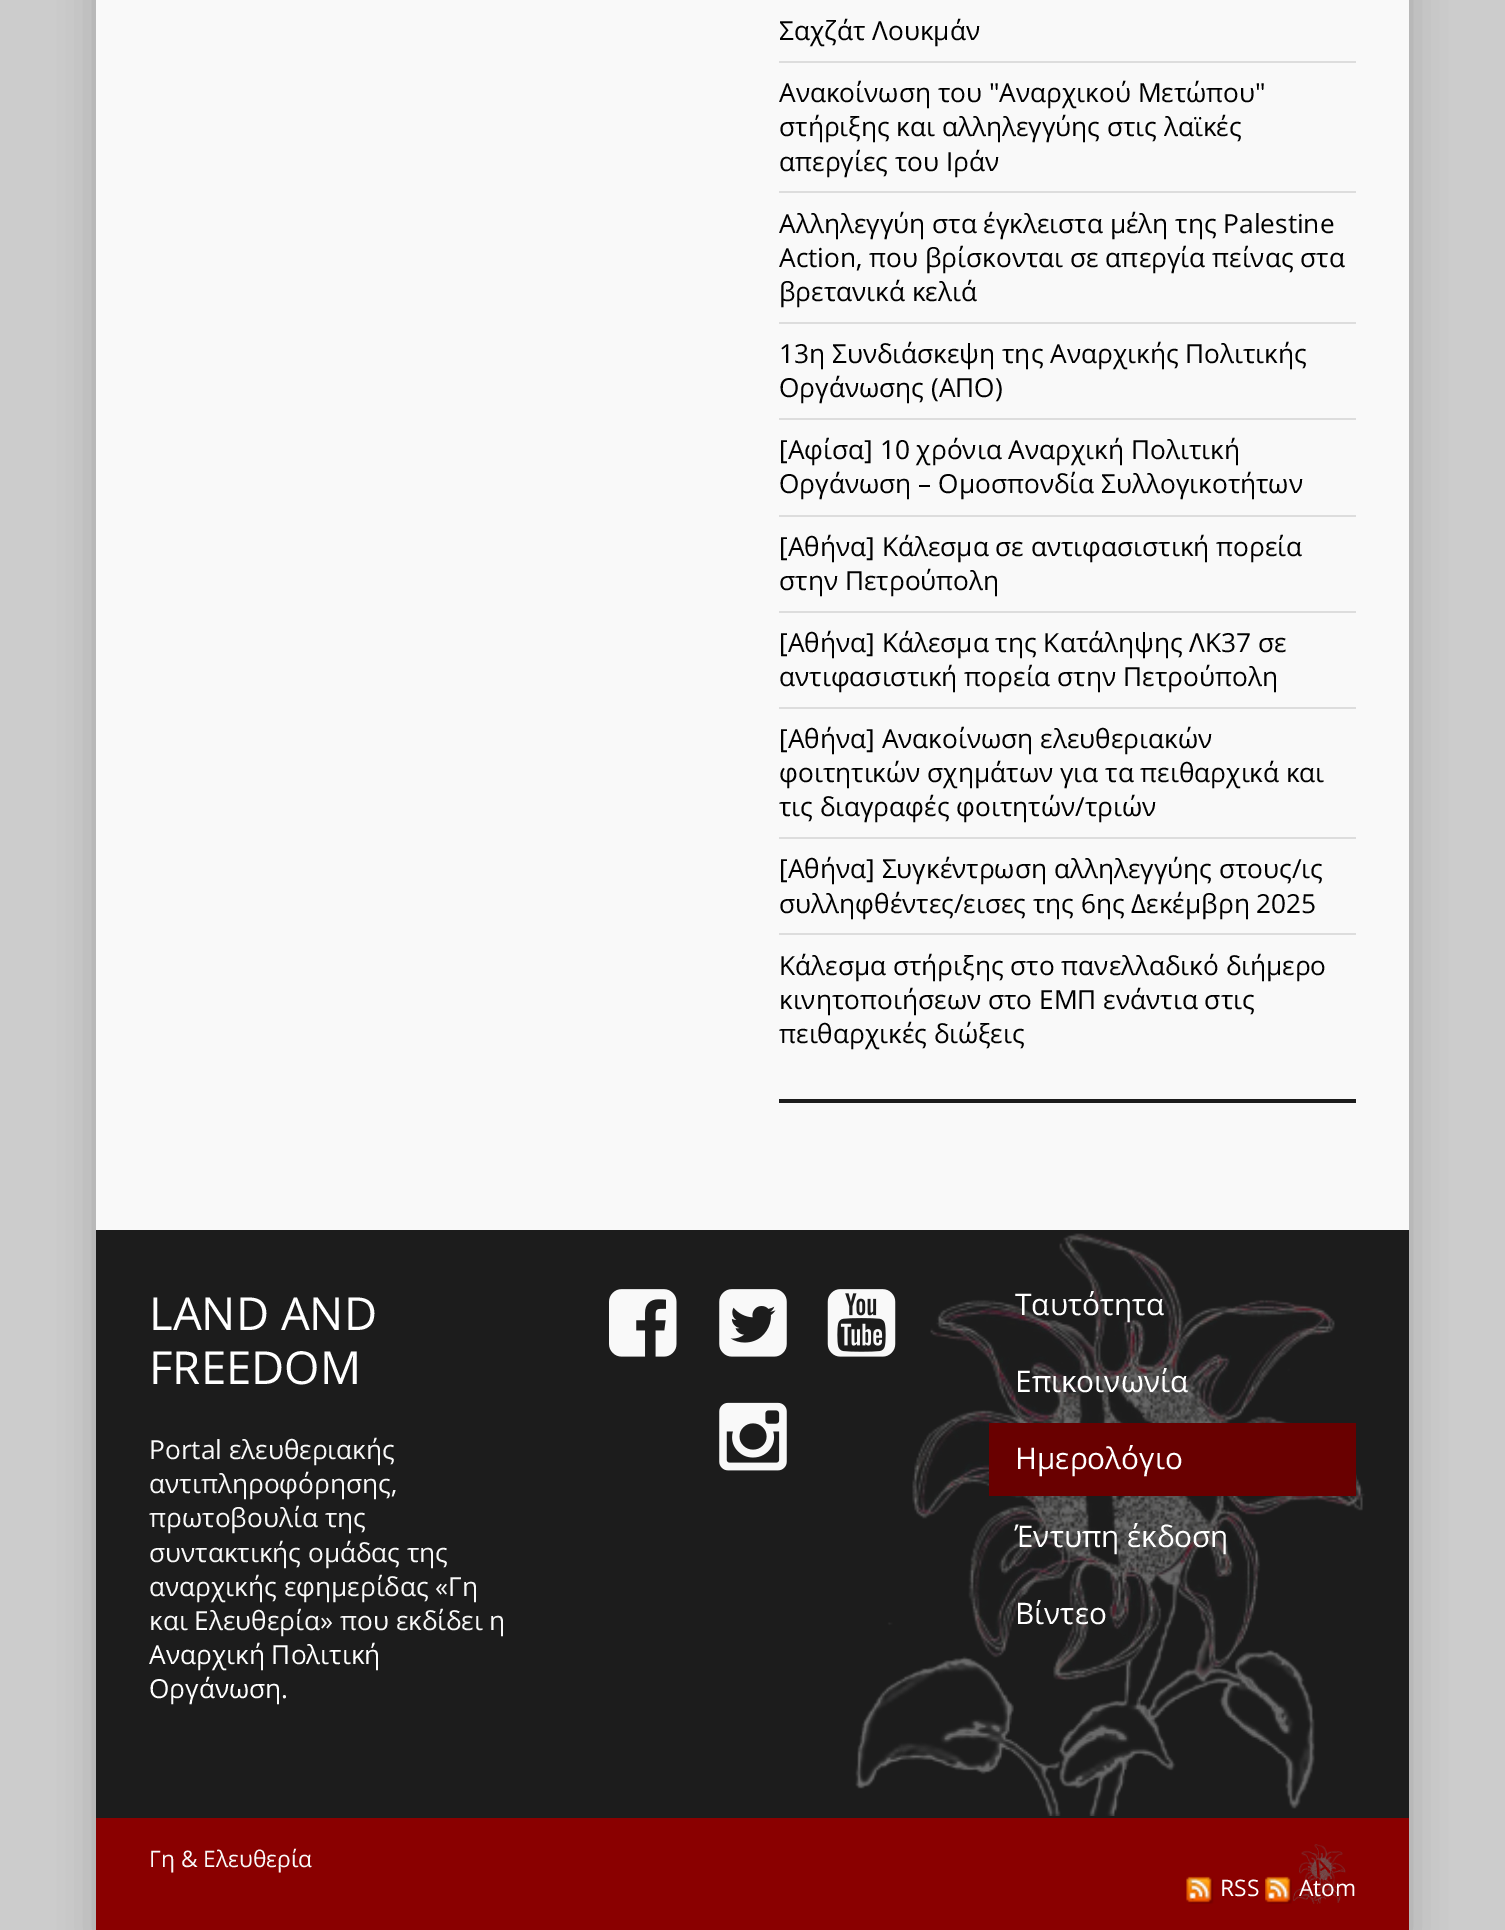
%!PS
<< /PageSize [1505 1930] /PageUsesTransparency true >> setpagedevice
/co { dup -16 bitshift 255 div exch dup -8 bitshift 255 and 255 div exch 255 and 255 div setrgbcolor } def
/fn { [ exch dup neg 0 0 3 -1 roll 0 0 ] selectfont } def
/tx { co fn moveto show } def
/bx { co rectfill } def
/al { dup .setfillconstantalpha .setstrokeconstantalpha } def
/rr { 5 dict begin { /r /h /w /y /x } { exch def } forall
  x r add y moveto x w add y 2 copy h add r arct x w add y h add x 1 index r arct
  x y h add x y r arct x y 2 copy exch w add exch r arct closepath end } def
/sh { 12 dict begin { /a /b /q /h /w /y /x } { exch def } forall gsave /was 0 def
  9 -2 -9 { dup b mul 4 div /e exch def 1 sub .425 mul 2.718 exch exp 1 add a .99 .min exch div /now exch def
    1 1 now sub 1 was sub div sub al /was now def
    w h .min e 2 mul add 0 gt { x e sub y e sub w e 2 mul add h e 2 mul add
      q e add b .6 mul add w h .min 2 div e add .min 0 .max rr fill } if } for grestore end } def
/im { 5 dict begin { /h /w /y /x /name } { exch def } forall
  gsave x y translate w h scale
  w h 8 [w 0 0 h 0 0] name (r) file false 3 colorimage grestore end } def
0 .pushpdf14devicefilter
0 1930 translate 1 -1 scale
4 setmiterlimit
0 0 1505 1930 16#CCCCCC bx
16#000000 co
96 -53 1313 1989 0 17.5 .19 sh
96 0 1313 1230 16#F9F9F9 bx
779 1099 577 4 16#1C1C1C bx
779 61 577 2 16#DDDDDD bx
779 191 577 2 16#DDDDDD bx
779 322 577 2 16#DDDDDD bx
779 418 577 2 16#DDDDDD bx
779 515 577 2 16#DDDDDD bx
779 611 577 2 16#DDDDDD bx
779 707 577 2 16#DDDDDD bx
779 837 577 2 16#DDDDDD bx
779 933 577 2 16#DDDDDD bx
96 1230 1313 588 16#1C1C1C bx
(media/1.raw) 855 1233 510 583 im
(media/2.raw) 609 1289 68 68 im
(media/3.raw) 719 1289 68 68 im
(media/4.raw) 827 1289 69 68 im
(media/5.raw) 719 1402 68 69 im
989 1423 367 73 16#690000 bx
96 1818 1313 112 16#8A0000 bx
(media/6.raw) 1293 1844 53 60 im
(media/7.raw) 1186 1876 28 28 im
(media/8.raw) 1265 1876 27 28 im
(Σαχζάτ Λουκμάν) 779 40 /OpenSans-Regular 26.25 16#000000 tx
(Ανακοίνωση του "Αναρχικού Μετώπου") 779 102 /OpenSans-Regular 26.25 16#000000 tx
(στήριξης και αλληλεγγύης στις λαϊκές) 779 136 /OpenSans-Regular 26.25 16#000000 tx
(απεργίες του Ιράν) 779 171 /OpenSans-Regular 26.25 16#000000 tx
(Αλληλεγγύη στα έγκλειστα μέλη της Palestine) 779 233 /OpenSans-Regular 26.25 16#000000 tx
(Action, που βρίσκονται σε απεργία πείνας στα) 779 267 /OpenSans-Regular 26.25 16#000000 tx
(βρετανικά κελιά) 779 301 /OpenSans-Regular 26.25 16#000000 tx
(13η Συνδιάσκεψη της Αναρχικής Πολιτικής) 779 363 /OpenSans-Regular 26.25 16#000000 tx
(Οργάνωσης \(ΑΠΟ\)) 779 397 /OpenSans-Regular 26.25 16#000000 tx
([Αφίσα] 10 χρόνια Αναρχική Πολιτική) 779 459 /OpenSans-Regular 26.25 16#000000 tx
(Οργάνωση – Ομοσπονδία Συλλογικοτήτων) 779 493 /OpenSans-Regular 26.25 16#000000 tx
([Αθήνα] Κάλεσμα σε αντιφασιστική πορεία) 779 556 /OpenSans-Regular 26.25 16#000000 tx
(στην Πετρούπολη) 779 590 /OpenSans-Regular 26.25 16#000000 tx
([Αθήνα] Κάλεσμα της Κατάληψης ΛΚ37 σε) 779 652 /OpenSans-Regular 26.25 16#000000 tx
(αντιφασιστική πορεία στην Πετρούπολη) 779 686 /OpenSans-Regular 26.25 16#000000 tx
([Αθήνα] Ανακοίνωση ελευθεριακών) 779 748 /OpenSans-Regular 26.25 16#000000 tx
(φοιτητικών σχημάτων για τα πειθαρχικά και) 779 782 /OpenSans-Regular 26.25 16#000000 tx
(τις διαγραφές φοιτητών/τριών) 779 816 /OpenSans-Regular 26.25 16#000000 tx
([Αθήνα] Συγκέντρωση αλληλεγγύης στους/ις) 779 878 /OpenSans-Regular 26.25 16#000000 tx
(συλληφθέντες/εισες της 6ης Δεκέμβρη 2025) 779 913 /OpenSans-Regular 26.25 16#000000 tx
(Κάλεσμα στήριξης στο πανελλαδικό διήμερο) 779 975 /OpenSans-Regular 26.25 16#000000 tx
(κινητοποιήσεων στο ΕΜΠ ενάντια στις) 779 1009 /OpenSans-Regular 26.25 16#000000 tx
(πειθαρχικές διώξεις) 779 1043 /OpenSans-Regular 26.25 16#000000 tx
(LAND AND) 149 1330 /OpenSans-Regular 45.5 16#FFFFFF tx
(FREEDOM) 149 1384 /OpenSans-Regular 45.5 16#FFFFFF tx
(Portal ελευθεριακής) 149 1459 /OpenSans-Regular 26.25 16#F9F9F9 tx
(αντιπληροφόρησης,) 149 1493 /OpenSans-Regular 26.25 16#F9F9F9 tx
(πρωτοβουλία της) 149 1527 /OpenSans-Regular 26.25 16#F9F9F9 tx
(συντακτικής ομάδας της) 149 1562 /OpenSans-Regular 26.25 16#F9F9F9 tx
(αναρχικής εφημερίδας «Γη) 149 1596 /OpenSans-Regular 26.25 16#F9F9F9 tx
(και Ελευθερία» που εκδίδει η) 149 1630 /OpenSans-Regular 26.25 16#F9F9F9 tx
(Αναρχική Πολιτική) 149 1664 /OpenSans-Regular 26.25 16#FFFFFF tx
(Οργάνωση) 149 1698 /OpenSans-Regular 26.25 16#FFFFFF tx
(.) 281 1698 /OpenSans-Regular 26.25 16#F9F9F9 tx
(Ταυτότητα) 1015 1315 /OpenSans-Regular 29.75 16#FFFFFF tx
(Επικοινωνία) 1015 1392 /OpenSans-Regular 29.75 16#FFFFFF tx
(Ημερολόγιο) 1015 1469 /OpenSans-Regular 29.75 16#FFFFFF tx
(Έντυπη έκδοση) 1015 1547 /OpenSans-Regular 29.75 16#FFFFFF tx
(Βίντεο) 1015 1624 /OpenSans-Regular 29.75 16#FFFFFF tx
(Γη & Ελευθερία) 149 1867 /OpenSans-Regular 22.75 16#F9F9F9 tx
(RSS) 1220 1896 /OpenSans-Regular 22.75 16#FFFFFF tx
(Atom) 1299 1896 /OpenSans-Regular 22.75 16#FFFFFF tx
.poppdf14devicefilter showpage
